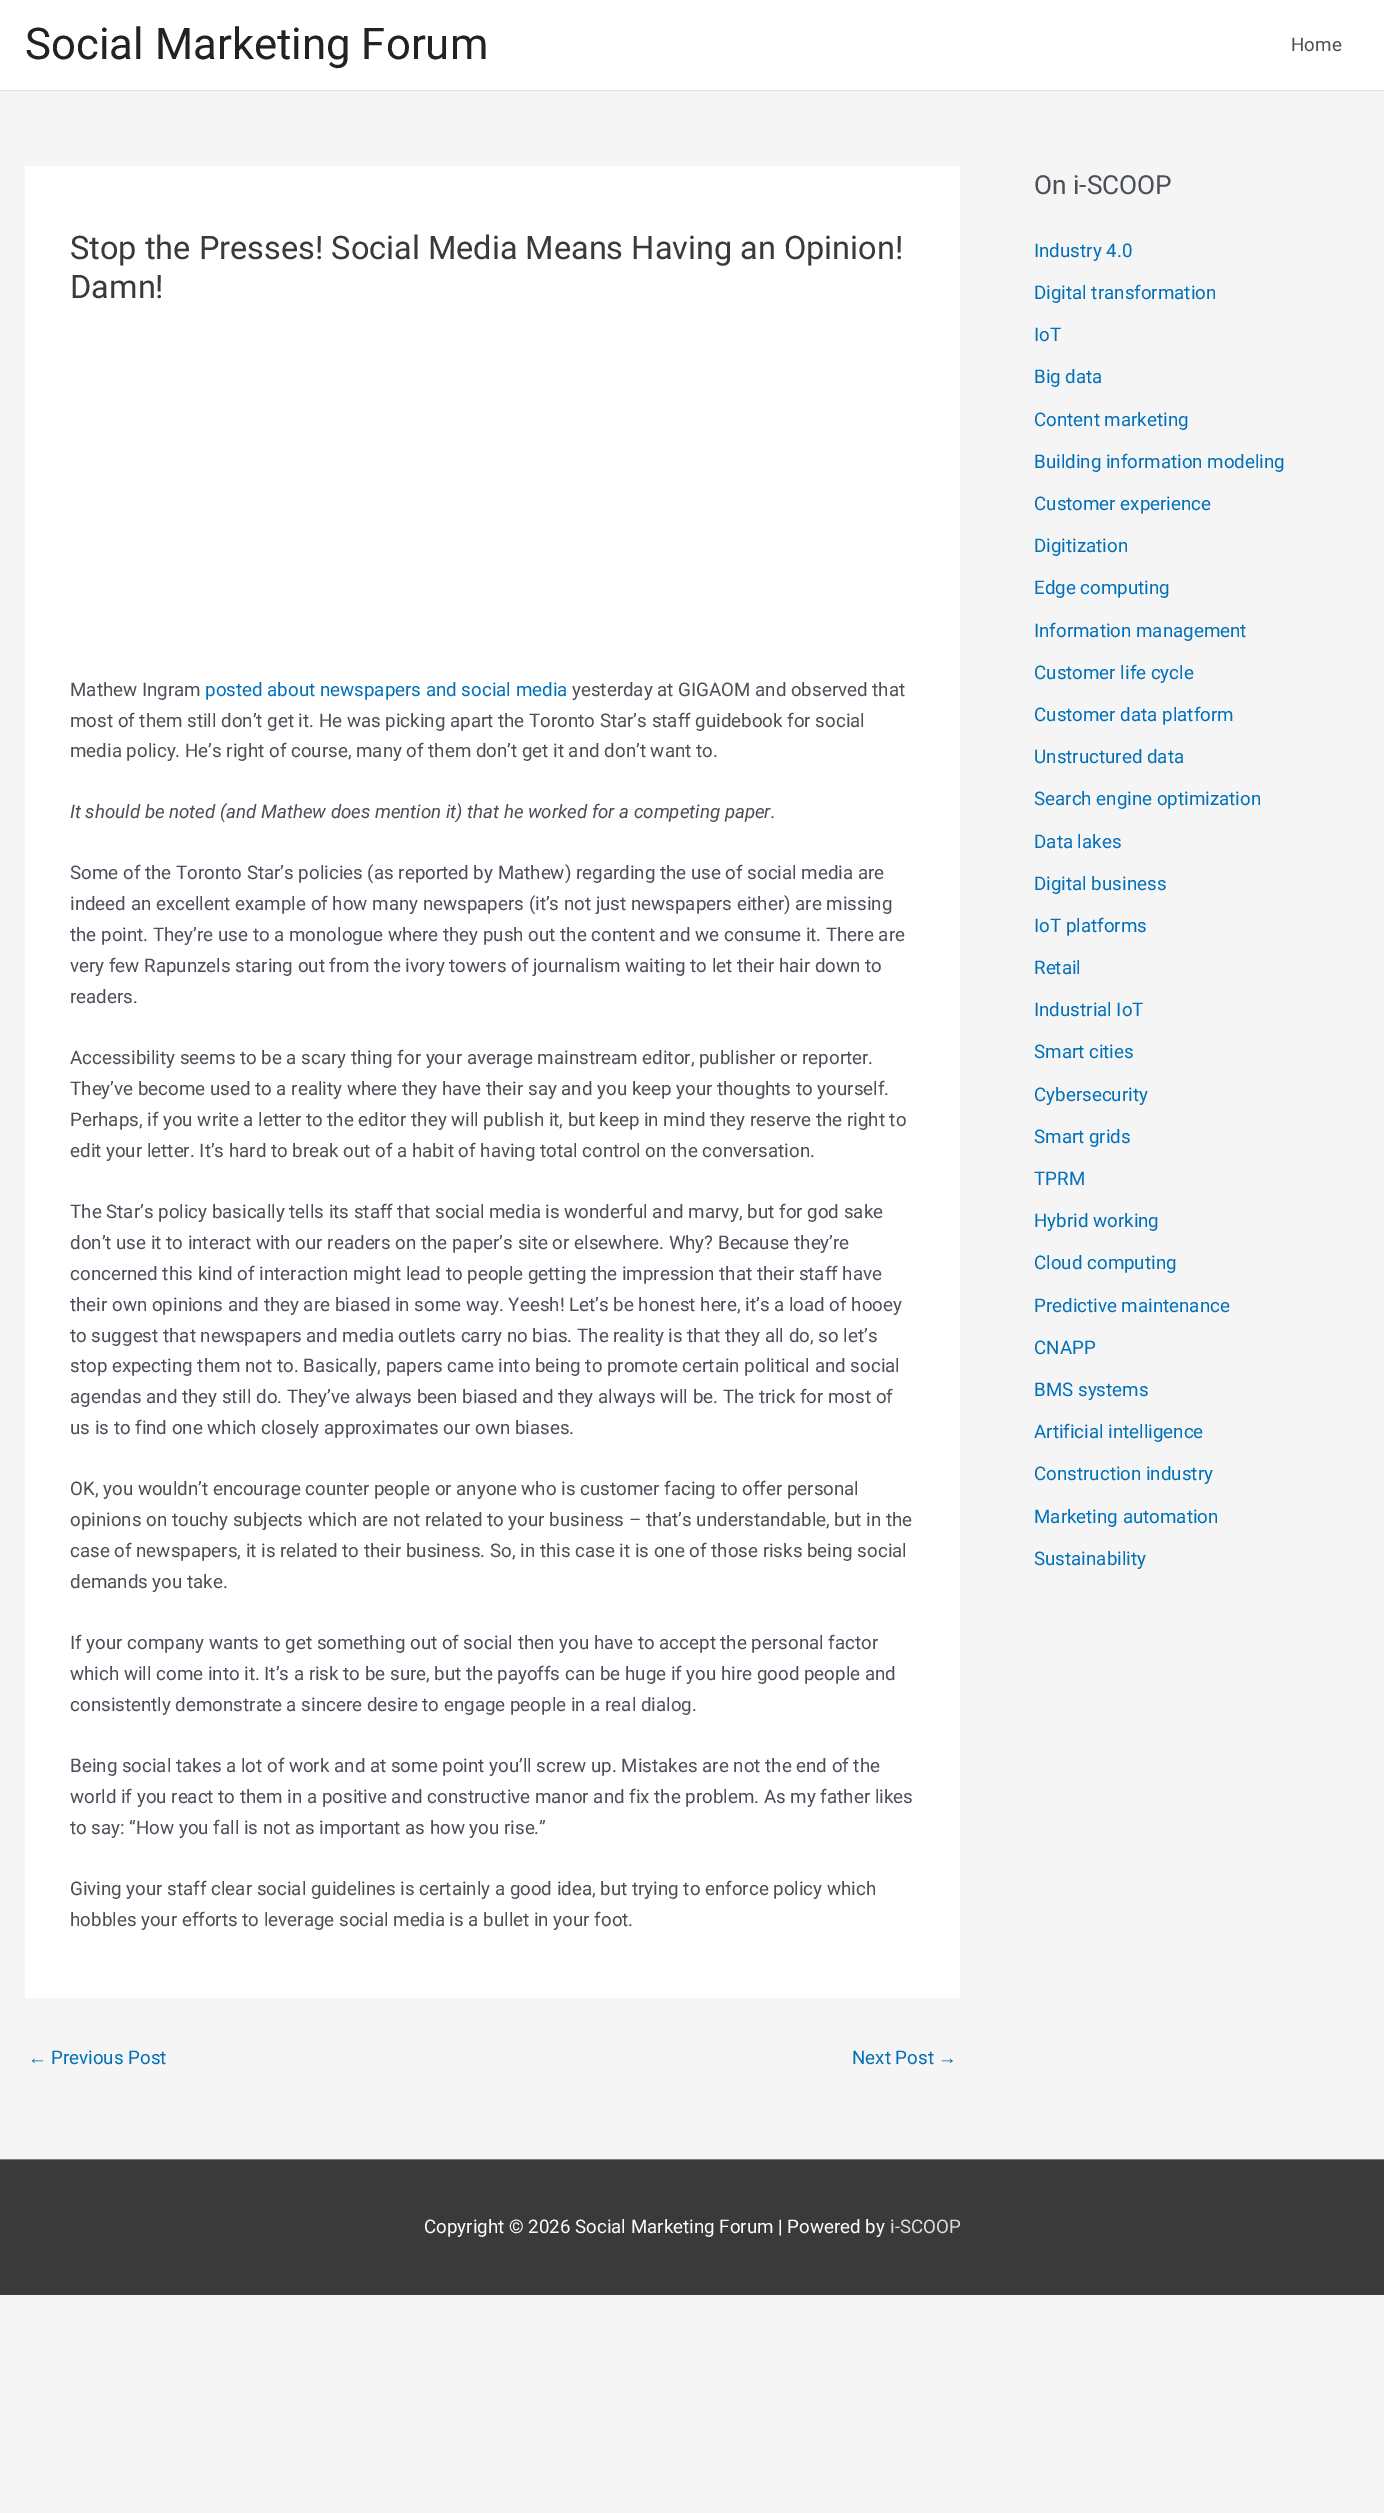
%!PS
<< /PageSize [1384 2513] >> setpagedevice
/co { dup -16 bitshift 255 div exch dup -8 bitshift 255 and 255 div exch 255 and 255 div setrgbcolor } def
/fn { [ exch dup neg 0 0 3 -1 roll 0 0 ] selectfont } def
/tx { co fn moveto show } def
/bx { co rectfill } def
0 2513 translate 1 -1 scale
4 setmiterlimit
0 0 1384 2513 16#F5F5F5 bx
0 0 1384 90 16#FFFFFF bx
0 90 1384 1 16#DDDDDD bx
25 166 935 1832 16#FFFFFF bx
0 2159 1384 1 16#7A7A7A bx
0 2160 1384 135 16#3A3A3A bx
(Social Marketing Forum) 25 59 /Roboto-Regular 43.75 16#222222 tx
(Home) 1291 51 /Roboto-Regular 18.75 16#4B4F58 tx
(Stop the Presses! Social Media Means Having an Opinion!) 70 259 /Roboto-Regular 32.5 16#3A3A3A tx
(Damn!) 70 298 /Roboto-Regular 32.5 16#3A3A3A tx
(Mathew Ingram) 70 696 /Roboto-Regular 18.75 16#4B4F58 tx
(posted about newspapers and social media) 205 696 /Roboto-Regular 18.75 16#0170B9 tx
(yesterday at GIGAOM and observed that) 572 696 /Roboto-Regular 18.75 16#4B4F58 tx
(most of them still don’t get it. He was picking apart the Toronto Star’s staff guidebook for social) 70 727 /Roboto-Regular 18.75 16#4B4F58 tx
(media policy. He’s right of course, many of them don’t get it and don’t want to.) 70 757 /Roboto-Regular 18.75 16#4B4F58 tx
(It should be noted \(and Mathew does mention it\) that he worked for a competing paper.) 70 818 /Roboto-Italic 18.75 16#4B4F58 tx
(Some of the Toronto Star’s policies \(as reported by Mathew\) regarding the use of social media are) 70 879 /Roboto-Regular 18.75 16#4B4F58 tx
(indeed an excellent example of how many newspapers \(it’s not just newspapers either\) are missing) 70 910 /Roboto-Regular 18.75 16#4B4F58 tx
(the point. They’re use to a monologue where they push out the content and we consume it. There are) 70 941 /Roboto-Regular 18.75 16#4B4F58 tx
(very few Rapunzels staring out from the ivory towers of journalism waiting to let their hair down to) 70 972 /Roboto-Regular 18.75 16#4B4F58 tx
(readers.) 70 1003 /Roboto-Regular 18.75 16#4B4F58 tx
(Accessibility seems to be a scary thing for your average mainstream editor, publisher or reporter.) 70 1064 /Roboto-Regular 18.75 16#4B4F58 tx
(They’ve become used to a reality where they have their say and you keep your thoughts to yourself.) 70 1095 /Roboto-Regular 18.75 16#4B4F58 tx
(Perhaps, if you write a letter to the editor they will publish it, but keep in mind they reserve the right to) 70 1126 /Roboto-Regular 18.75 16#4B4F58 tx
(edit your letter. It’s hard to break out of a habit of having total control on the conversation.) 70 1157 /Roboto-Regular 18.75 16#4B4F58 tx
(The Star’s policy basically tells its staff that social media is wonderful and marvy, but for god sake) 70 1218 /Roboto-Regular 18.75 16#4B4F58 tx
(don’t use it to interact with our readers on the paper’s site or elsewhere. Why? Because they’re) 70 1249 /Roboto-Regular 18.75 16#4B4F58 tx
(concerned this kind of interaction might lead to people getting the impression that their staff have) 70 1280 /Roboto-Regular 18.75 16#4B4F58 tx
(their own opinions and they are biased in some way. Yeesh! Let’s be honest here, it’s a load of hooey) 70 1311 /Roboto-Regular 18.75 16#4B4F58 tx
(to suggest that newspapers and media outlets carry no bias. The reality is that they all do, so let’s) 70 1342 /Roboto-Regular 18.75 16#4B4F58 tx
(stop expecting them not to. Basically, papers came into being to promote certain political and social) 70 1372 /Roboto-Regular 18.75 16#4B4F58 tx
(agendas and they still do. They’ve always been biased and they always will be. The trick for most of) 70 1403 /Roboto-Regular 18.75 16#4B4F58 tx
(us is to find one which closely approximates our own biases.) 70 1434 /Roboto-Regular 18.75 16#4B4F58 tx
(OK, you wouldn’t encourage counter people or anyone who is customer facing to offer personal) 70 1495 /Roboto-Regular 18.75 16#4B4F58 tx
(opinions on touchy subjects which are not related to your business – that’s understandable, but in the) 70 1526 /Roboto-Regular 18.75 16#4B4F58 tx
(case of newspapers, it is related to their business. So, in this case it is one of those risks being social) 70 1557 /Roboto-Regular 18.75 16#4B4F58 tx
(demands you take.) 70 1588 /Roboto-Regular 18.75 16#4B4F58 tx
(If your company wants to get something out of social then you have to accept the personal factor) 70 1649 /Roboto-Regular 18.75 16#4B4F58 tx
(which will come into it. It’s a risk to be sure, but the payoffs can be huge if you hire good people and) 70 1680 /Roboto-Regular 18.75 16#4B4F58 tx
(consistently demonstrate a sincere desire to engage people in a real dialog.) 70 1711 /Roboto-Regular 18.75 16#4B4F58 tx
(Being social takes a lot of work and at some point you’ll screw up. Mistakes are not the end of the) 70 1772 /Roboto-Regular 18.75 16#4B4F58 tx
(world if you react to them in a positive and constructive manor and fix the problem. As my father likes) 70 1803 /Roboto-Regular 18.75 16#4B4F58 tx
(to say: “How you fall is not as important as how you rise.”) 70 1834 /Roboto-Regular 18.75 16#4B4F58 tx
(Giving your staff clear social guidelines is certainly a good idea, but trying to enforce policy which) 70 1895 /Roboto-Regular 18.75 16#4B4F58 tx
(hobbles your efforts to leverage social media is a bullet in your foot.) 70 1926 /Roboto-Regular 18.75 16#4B4F58 tx
(←) 28 2064 /LiberationSans-Regular 18.75 16#0170B9 tx
(Previous Post) 51 2064 /Roboto-Regular 18.75 16#0170B9 tx
(Next Post) 852 2064 /Roboto-Regular 18.75 16#0170B9 tx
(→) 938 2064 /LiberationSans-Regular 18.75 16#0170B9 tx
(On i-SCOOP) 1034 194 /Roboto-Regular 26.25 16#4B4F58 tx
(Industry 4.0) 1034 257 /Roboto-Regular 18.75 16#0170B9 tx
(Digital transformation) 1034 299 /Roboto-Regular 18.75 16#0170B9 tx
(IoT) 1034 341 /Roboto-Regular 18.75 16#0170B9 tx
(Big data) 1034 383 /Roboto-Regular 18.75 16#0170B9 tx
(Content marketing) 1034 426 /Roboto-Regular 18.75 16#0170B9 tx
(Building information modeling) 1034 468 /Roboto-Regular 18.75 16#0170B9 tx
(Customer experience) 1034 510 /Roboto-Regular 18.75 16#0170B9 tx
(Digitization) 1034 552 /Roboto-Regular 18.75 16#0170B9 tx
(Edge computing) 1034 594 /Roboto-Regular 18.75 16#0170B9 tx
(Information management) 1034 637 /Roboto-Regular 18.75 16#0170B9 tx
(Customer life cycle) 1034 679 /Roboto-Regular 18.75 16#0170B9 tx
(Customer data platform) 1034 721 /Roboto-Regular 18.75 16#0170B9 tx
(Unstructured data) 1034 763 /Roboto-Regular 18.75 16#0170B9 tx
(Search engine optimization) 1034 805 /Roboto-Regular 18.75 16#0170B9 tx
(Data lakes) 1034 848 /Roboto-Regular 18.75 16#0170B9 tx
(Digital business) 1034 890 /Roboto-Regular 18.75 16#0170B9 tx
(IoT platforms) 1034 932 /Roboto-Regular 18.75 16#0170B9 tx
(Retail) 1034 974 /Roboto-Regular 18.75 16#0170B9 tx
(Industrial IoT) 1034 1016 /Roboto-Regular 18.75 16#0170B9 tx
(Smart cities) 1034 1058 /Roboto-Regular 18.75 16#0170B9 tx
(Cybersecurity) 1034 1101 /Roboto-Regular 18.75 16#0170B9 tx
(Smart grids) 1034 1143 /Roboto-Regular 18.75 16#0170B9 tx
(TPRM) 1034 1185 /Roboto-Regular 18.75 16#0170B9 tx
(Hybrid working) 1034 1227 /Roboto-Regular 18.75 16#0170B9 tx
(Cloud computing) 1034 1269 /Roboto-Regular 18.75 16#0170B9 tx
(Predictive maintenance) 1034 1312 /Roboto-Regular 18.75 16#0170B9 tx
(CNAPP) 1034 1354 /Roboto-Regular 18.75 16#0170B9 tx
(BMS systems) 1034 1396 /Roboto-Regular 18.75 16#0170B9 tx
(Artificial intelligence) 1034 1438 /Roboto-Regular 18.75 16#0170B9 tx
(Construction industry) 1034 1480 /Roboto-Regular 18.75 16#0170B9 tx
(Marketing automation) 1034 1523 /Roboto-Regular 18.75 16#0170B9 tx
(Sustainability) 1034 1565 /Roboto-Regular 18.75 16#0170B9 tx
(Copyright © 2026 Social Marketing Forum | Powered by) 424 2233 /Roboto-Regular 18.75 16#FFFFFF tx
(i-SCOOP) 890 2233 /Roboto-Regular 18.75 16#DDDDDD tx
showpage
